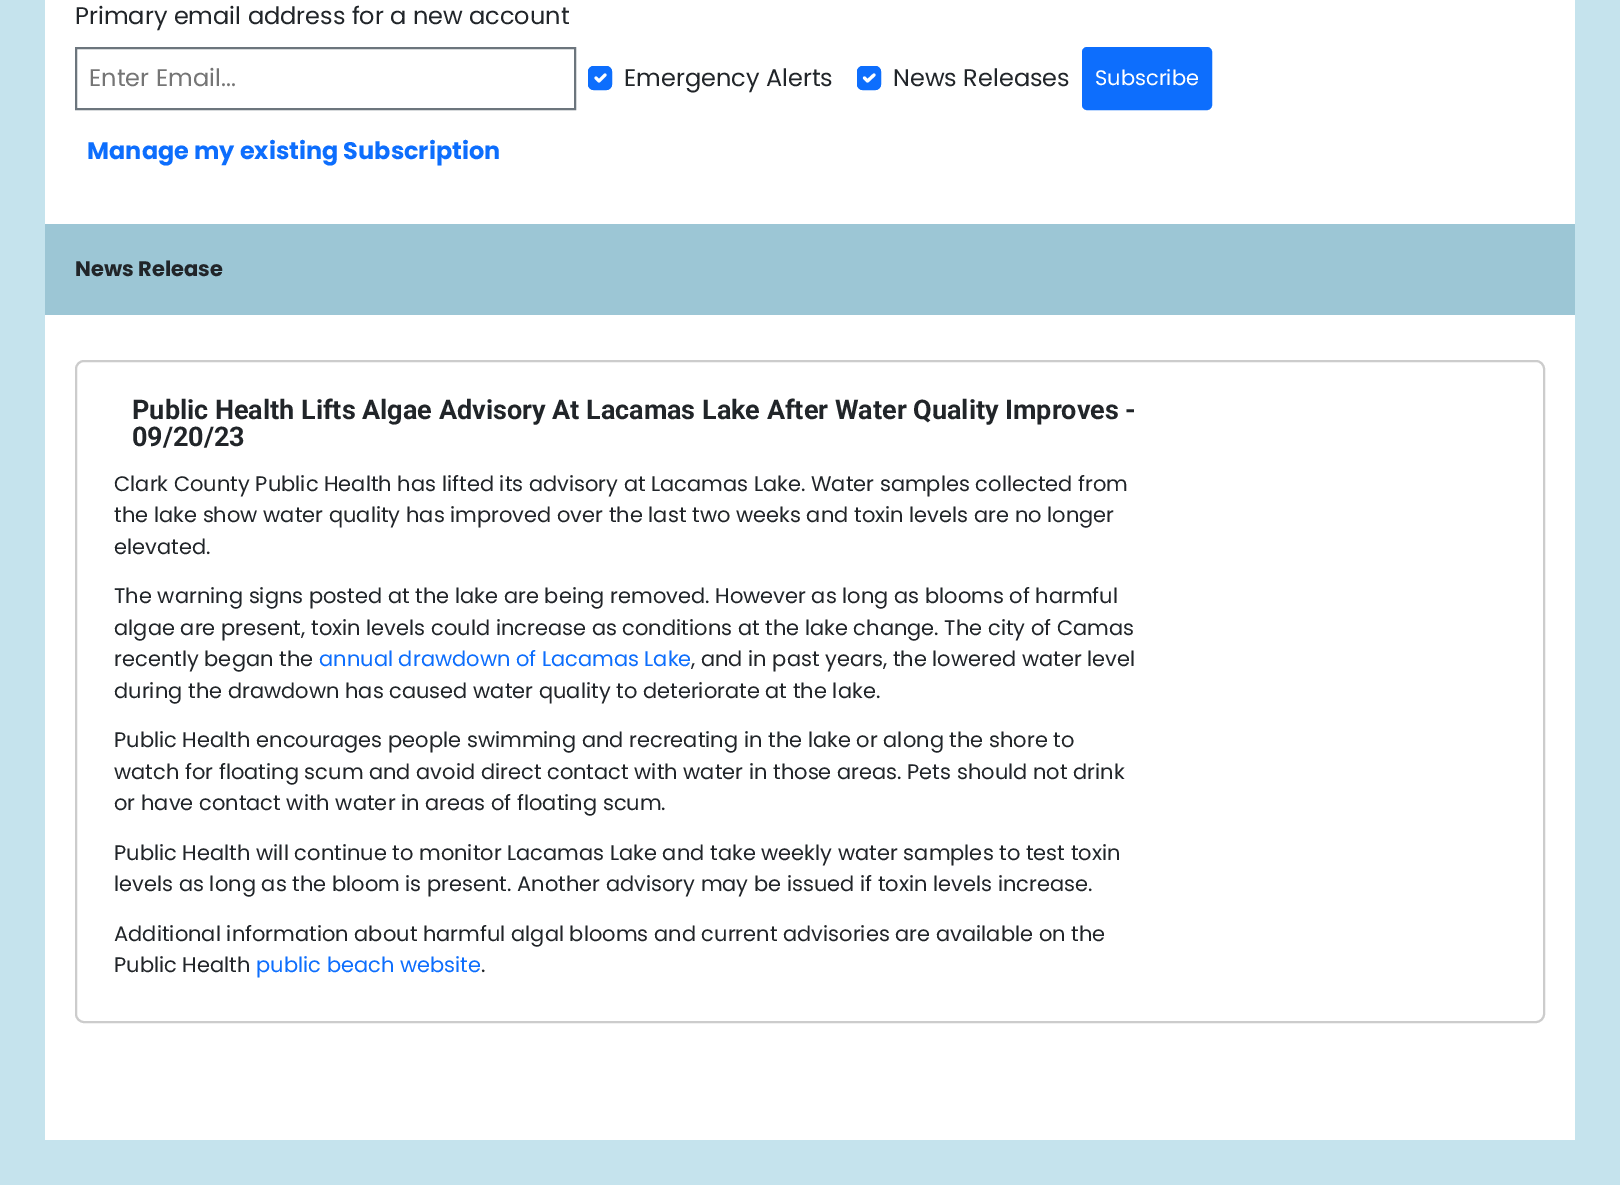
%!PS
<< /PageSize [1620 1185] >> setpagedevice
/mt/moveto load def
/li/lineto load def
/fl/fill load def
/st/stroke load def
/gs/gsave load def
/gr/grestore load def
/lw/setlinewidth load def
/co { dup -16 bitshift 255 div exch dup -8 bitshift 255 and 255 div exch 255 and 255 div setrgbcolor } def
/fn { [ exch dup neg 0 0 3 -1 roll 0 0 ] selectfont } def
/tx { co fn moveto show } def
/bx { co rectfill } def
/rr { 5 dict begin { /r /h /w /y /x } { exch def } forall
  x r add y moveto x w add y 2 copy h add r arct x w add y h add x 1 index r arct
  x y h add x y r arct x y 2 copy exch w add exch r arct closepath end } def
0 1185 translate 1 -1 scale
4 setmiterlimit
0 0 1620 1185 16#C5E3ED bx
45 0 1530 1140 16#FFFFFF bx
16#6C757D co
2 lw
76 48 499 61 rectstroke
16#0D6EFD co
588 66 24 24 6 rr fl
16#FFFFFF co
3.1 lw
1 setlinecap
1 setlinejoin
596 78 mt 599 81 li 605 75 li st
16#0D6EFD co
2 lw
0 setlinecap
0 setlinejoin
589 67 22 22 5 rr st
857 66 24 24 6 rr fl
16#FFFFFF co
3.1 lw
1 setlinecap
1 setlinejoin
864.5 78 mt 867.5 81 li 874 75 li st
16#0D6EFD co
2 lw
0 setlinecap
0 setlinejoin
858 67 22 22 5 rr st
1083 48 128 61 4 rr gs fl gr
st
45 224 1530 91 16#9CC6D5 bx
16#CCCCCC co
76 361 1468 661 8 rr st
(Primary email address for a new account) 75 24 /Poppins-Regular 24 16#212529 tx
(Enter Email...) 89 86 /Poppins-Regular 24 16#757575 tx
(Emergency Alerts) 624 86 /Poppins-Regular 24 16#212529 tx
(News Releases) 893 86 /Poppins-Regular 24 16#212529 tx
(Subscribe) 1095 85 /Poppins-Regular 21 16#FFFFFF tx
(Manage my existing Subscription) 87 159 /Poppins-Bold 24 16#0D6EFD tx
(News Release) 75 276 /Poppins-Bold 21 16#212529 tx
(Public Health Lifts Algae Advisory At Lacamas Lake After Water Quality Improves -) 132 419 /Roboto-Bold 27 16#212529 tx
(09/20/23) 132 446 /Roboto-Bold 27 16#212529 tx
(Clark County Public Health has lifted its advisory at Lacamas Lake. Water samples collected from) 114 491 /Poppins-Regular 21 16#212529 tx
(the lake show water quality has improved over the last two weeks and toxin levels are no longer) 114 522 /Poppins-Regular 21 16#212529 tx
(elevated.) 114 554 /Poppins-Regular 21 16#212529 tx
(The warning signs posted at the lake are being removed. However as long as blooms of harmful) 114 603 /Poppins-Regular 21 16#212529 tx
(algae are present, toxin levels could increase as conditions at the lake change. The city of Camas) 114 635 /Poppins-Regular 21 16#212529 tx
(recently began the) 114 666 /Poppins-Regular 21 16#212529 tx
(annual drawdown of Lacamas Lake) 319 666 /Poppins-Regular 21 16#0D6EFD tx
(, and in past years, the lowered water level) 691 666 /Poppins-Regular 21 16#212529 tx
(during the drawdown has caused water quality to deteriorate at the lake.) 114 698 /Poppins-Regular 21 16#212529 tx
(Public Health encourages people swimming and recreating in the lake or along the shore to) 114 747 /Poppins-Regular 21 16#212529 tx
(watch for floating scum and avoid direct contact with water in those areas. Pets should not drink) 114 779 /Poppins-Regular 21 16#212529 tx
(or have contact with water in areas of floating scum.) 114 810 /Poppins-Regular 21 16#212529 tx
(Public Health will continue to monitor Lacamas Lake and take weekly water samples to test toxin) 114 860 /Poppins-Regular 21 16#212529 tx
(levels as long as the bloom is present. Another advisory may be issued if toxin levels increase.) 114 891 /Poppins-Regular 21 16#212529 tx
(Additional information about harmful algal blooms and current advisories are available on the) 114 941 /Poppins-Regular 21 16#212529 tx
(Public Health) 114 972 /Poppins-Regular 21 16#212529 tx
(public beach website) 256 972 /Poppins-Regular 21 16#0D6EFD tx
(.) 481 972 /Poppins-Regular 21 16#212529 tx
showpage
